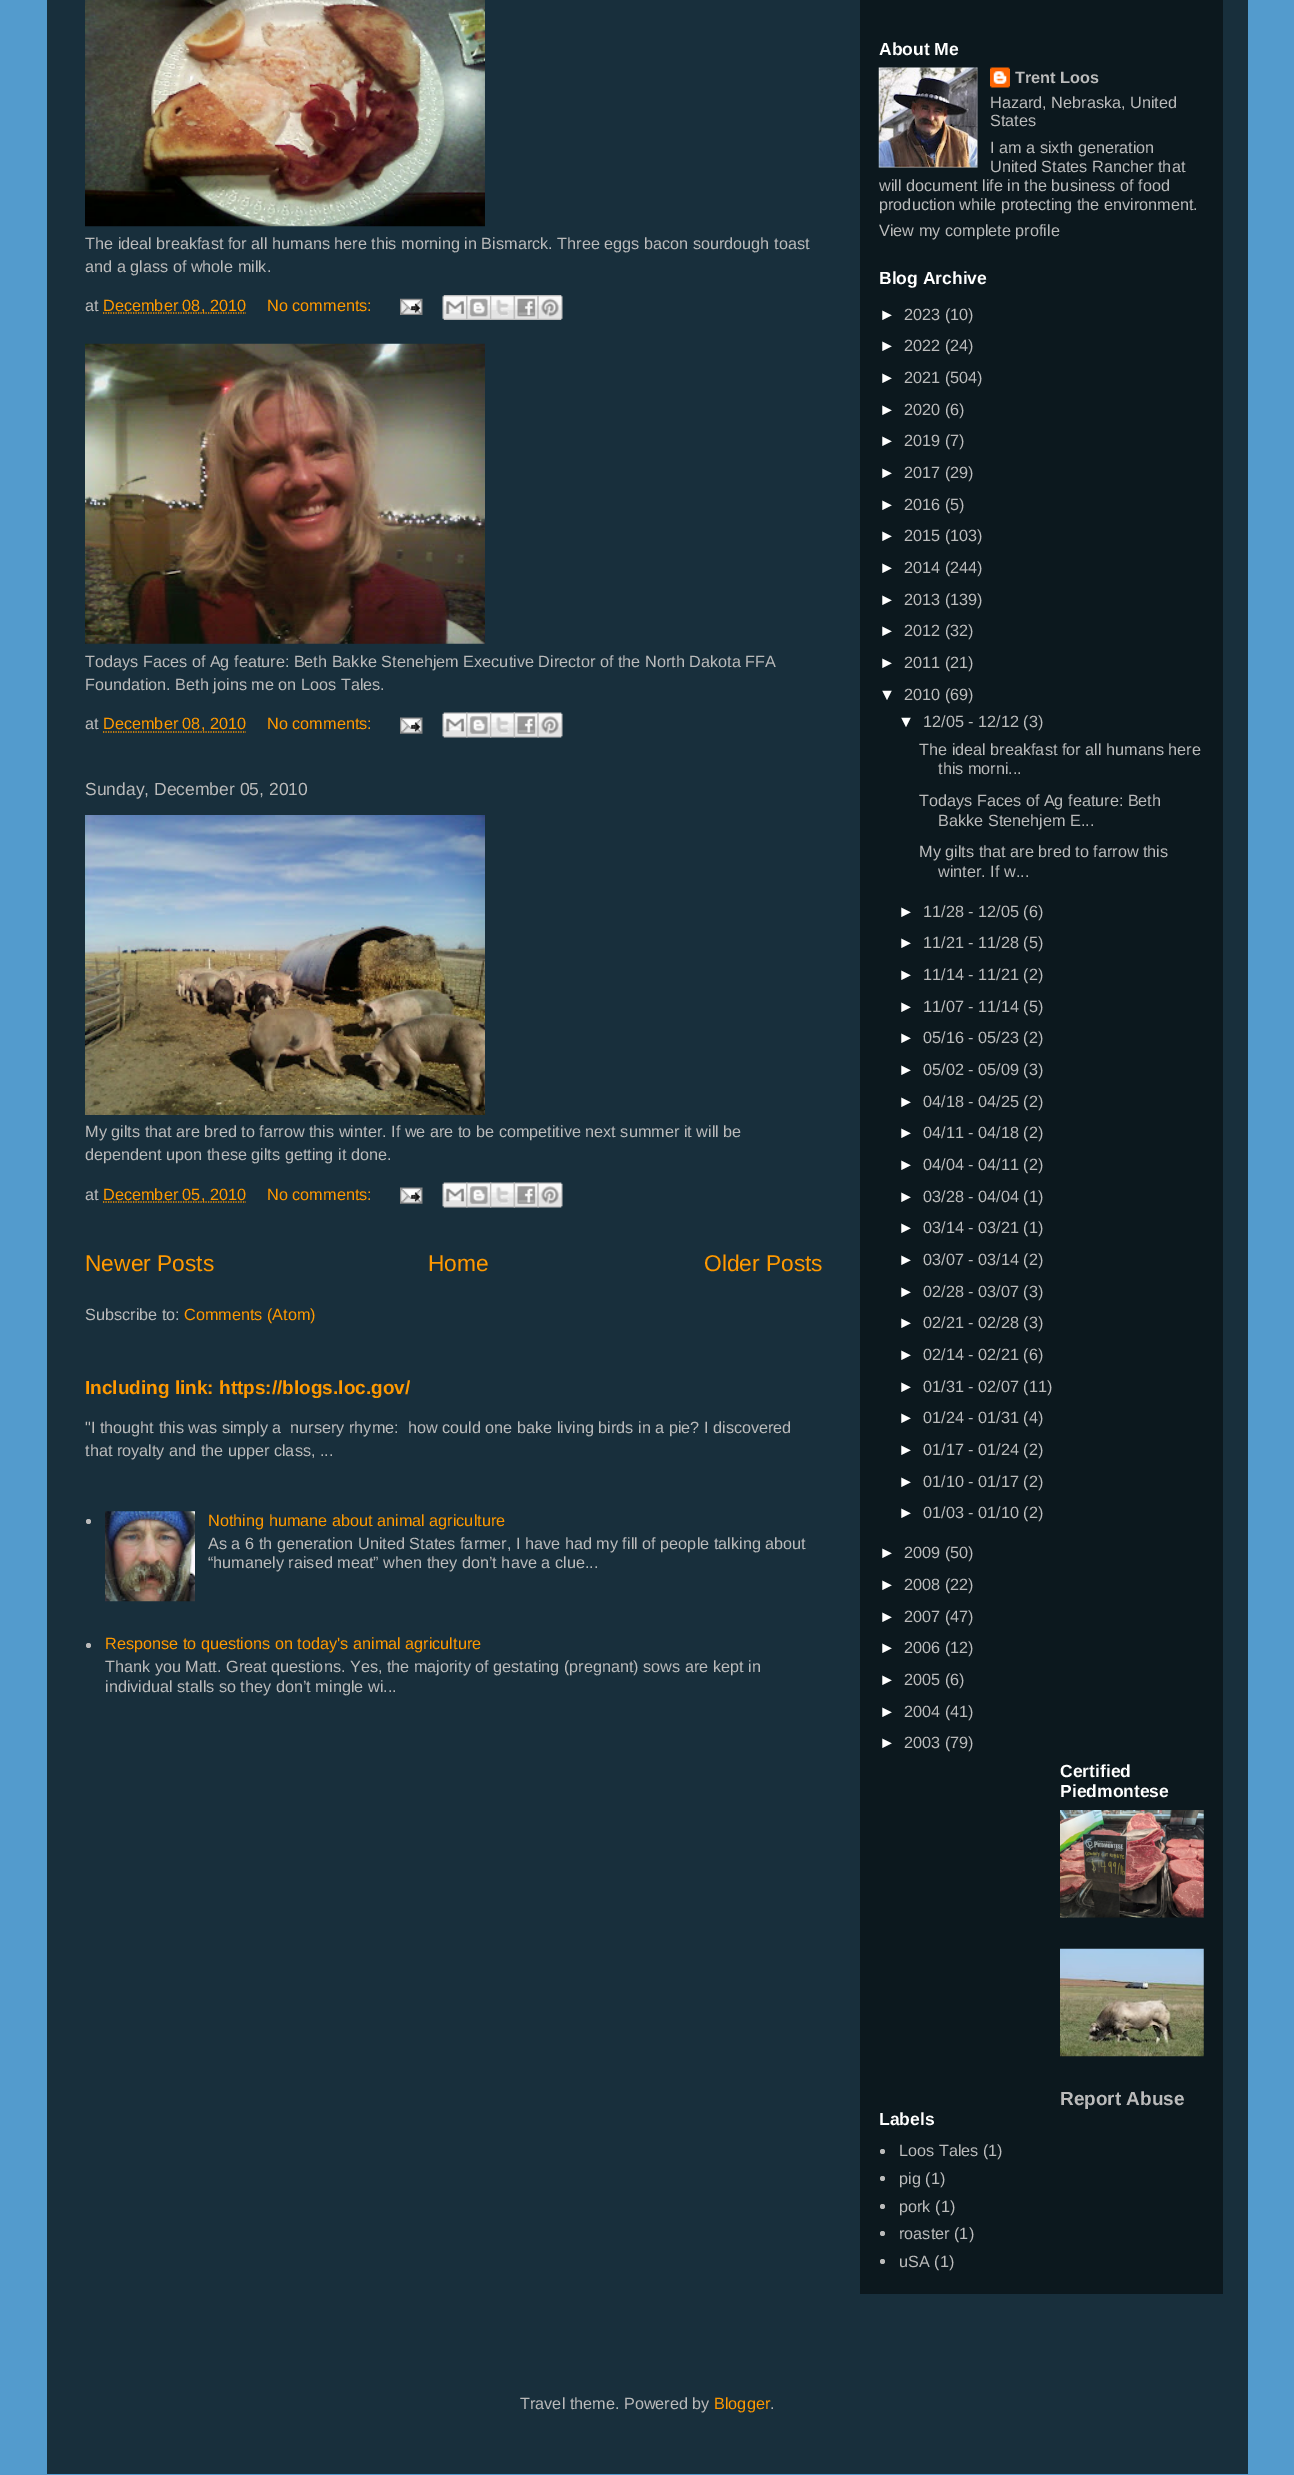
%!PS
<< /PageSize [1294 2475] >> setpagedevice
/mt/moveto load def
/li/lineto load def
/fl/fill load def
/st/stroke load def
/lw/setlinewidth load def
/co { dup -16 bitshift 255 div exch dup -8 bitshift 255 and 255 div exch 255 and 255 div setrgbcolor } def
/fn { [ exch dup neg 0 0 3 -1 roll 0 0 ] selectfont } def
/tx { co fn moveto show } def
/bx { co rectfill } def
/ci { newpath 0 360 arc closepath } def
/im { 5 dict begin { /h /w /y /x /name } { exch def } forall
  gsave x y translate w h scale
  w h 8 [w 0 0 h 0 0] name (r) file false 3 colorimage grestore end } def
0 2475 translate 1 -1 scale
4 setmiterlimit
0 0 1294 2475 16#539BCD bx
47 0 1201 2474 16#182F3C bx
860 0 363 2294 16#0C181E bx
(media/1.raw) 85 0 400 227 im
16#FF9900 co
1.2 lw
[1.25 1.25] 0 setdash
103 313 mt 246 313 li st
(media/2.raw) 400 298 23 17 im
(media/3.raw) 442 295 25 25 im
(media/4.raw) 466 295 24 25 im
(media/5.raw) 490 295 24 25 im
(media/6.raw) 513 295 25 25 im
(media/7.raw) 537 295 26 25 im
(media/8.raw) 85 343 400 301 im
103 732 mt 246 732 li st
(media/9.raw) 400 717 23 17 im
(media/10.raw) 442 712 26 26 im
(media/11.raw) 466 712 26 26 im
(media/12.raw) 490 712 25 26 im
(media/13.raw) 513 712 26 26 im
(media/14.raw) 537 712 26 26 im
(media/15.raw) 85 815 400 300 im
103 1202 mt 246 1202 li st
(media/9.raw) 400 1187 23 17 im
(media/10.raw) 442 1182 26 26 im
(media/11.raw) 466 1182 26 26 im
(media/12.raw) 490 1182 25 26 im
(media/13.raw) 513 1182 26 26 im
(media/14.raw) 537 1182 26 26 im
16#BBBBBB co
88.5 1521.5 2.5 ci fl
(media/16.raw) 105 1511 90 91 im
88.5 1645.5 2.5 ci fl
(media/17.raw) 878 67 100 101 im
(media/18.raw) 990 67 20 21 im
(media/19.raw) 1060 1810 144 108 im
(media/20.raw) 1060 1948 144 109 im
882.5 2151.5 2.5 ci fl
882.5 2178.5 2.5 ci fl
882.5 2206.5 2.5 ci fl
882.5 2233.5 2.5 ci fl
882.5 2261.5 2.5 ci fl
(The ideal breakfast for all humans here this morning in Bismarck. Three eggs bacon sourdough toast) 85 249 /LiberationSans-Regular 16.25 16#BBBBBB tx
(and a glass of whole milk.) 85 272 /LiberationSans-Regular 16.25 16#BBBBBB tx
(at) 85 311 /LiberationSans-Regular 16.25 16#BBBBBB tx
(December 08, 2010) 103 311 /LiberationSans-Regular 16.25 16#FF9900 tx
(No comments:) 267 311 /LiberationSans-Regular 16.25 16#FF9900 tx
(Todays Faces of Ag feature: Beth Bakke Stenehjem Executive Director of the North Dakota FFA) 85 667 /LiberationSans-Regular 16.25 16#BBBBBB tx
(Foundation. Beth joins me on Loos Tales.) 85 690 /LiberationSans-Regular 16.25 16#BBBBBB tx
(at) 85 729 /LiberationSans-Regular 16.25 16#BBBBBB tx
(December 08, 2010) 103 729 /LiberationSans-Regular 16.25 16#FF9900 tx
(No comments:) 267 729 /LiberationSans-Regular 16.25 16#FF9900 tx
(Sunday, December 05, 2010) 85 795 /LiberationSans-Regular 17.5 16#BBBBBB tx
(My gilts that are bred to farrow this winter. If we are to be competitive next summer it will be) 85 1137 /LiberationSans-Regular 16.25 16#BBBBBB tx
(dependent upon these gilts getting it done.) 85 1160 /LiberationSans-Regular 16.25 16#BBBBBB tx
(at) 85 1200 /LiberationSans-Regular 16.25 16#BBBBBB tx
(December 05, 2010) 103 1200 /LiberationSans-Regular 16.25 16#FF9900 tx
(No comments:) 267 1200 /LiberationSans-Regular 16.25 16#FF9900 tx
(Newer Posts) 85 1271 /LiberationSans-Regular 22.75 16#FF9900 tx
(Home) 428 1271 /LiberationSans-Regular 22.75 16#FF9900 tx
(Older Posts) 704 1271 /LiberationSans-Regular 22.75 16#FF9900 tx
(Subscribe to:) 85 1320 /LiberationSans-Regular 16.25 16#BBBBBB tx
(Comments \(Atom\)) 184 1320 /LiberationSans-Regular 16.25 16#FF9900 tx
(Including link: https://blogs.loc.gov/) 85 1394 /LiberationSans-Bold 19 16#FF9900 tx
("I thought this was simply a  nursery rhyme:  how could one bake living birds in a pie? I discovered) 85 1433 /LiberationSans-Regular 16.25 16#BBBBBB tx
(that royalty and the upper class, ...) 85 1456 /LiberationSans-Regular 16.25 16#BBBBBB tx
(Nothing humane about animal agriculture) 208 1526 /LiberationSans-Regular 16.25 16#FF9900 tx
(As a 6 th generation United States farmer, I have had my fill of people talking about) 208 1549 /LiberationSans-Regular 16.25 16#BBBBBB tx
(“humanely raised meat” when they don’t have a clue...) 208 1568 /LiberationSans-Regular 16.25 16#BBBBBB tx
(Response to questions on today's animal agriculture) 105 1649 /LiberationSans-Regular 16.25 16#FF9900 tx
(Thank you Matt. Great questions. Yes, the majority of gestating \(pregnant\) sows are kept in) 105 1672 /LiberationSans-Regular 16.25 16#BBBBBB tx
(individual stalls so they don’t mingle wi...) 105 1692 /LiberationSans-Regular 16.25 16#BBBBBB tx
(About Me) 879 55 /LiberationSans-Bold 17.5 16#FFFFFF tx
(Trent Loos) 1015 83 /LiberationSans-Bold 16.25 16#BBBBBB tx
(Hazard, Nebraska, United) 990 108 /LiberationSans-Regular 16.25 16#BBBBBB tx
(States) 990 126 /LiberationSans-Regular 16.25 16#BBBBBB tx
(I am a sixth generation) 990 153 /LiberationSans-Regular 16.25 16#BBBBBB tx
(United States Rancher that) 990 172 /LiberationSans-Regular 16.25 16#BBBBBB tx
(will document life in the business of food) 879 191 /LiberationSans-Regular 16.25 16#BBBBBB tx
(production while protecting the environment.) 879 210 /LiberationSans-Regular 16.25 16#BBBBBB tx
(View my complete profile) 879 236 /LiberationSans-Regular 16.25 16#BBBBBB tx
(Blog Archive) 879 284 /LiberationSans-Bold 17.5 16#FFFFFF tx
(►) 879 320 /LiberationSans-Regular 16.25 16#FFFFFF tx
(2023 \(10\)) 904 320 /LiberationSans-Regular 16.25 16#BBBBBB tx
(►) 879 351 /LiberationSans-Regular 16.25 16#FFFFFF tx
(2022 \(24\)) 904 351 /LiberationSans-Regular 16.25 16#BBBBBB tx
(►) 879 383 /LiberationSans-Regular 16.25 16#FFFFFF tx
(2021 \(504\)) 904 383 /LiberationSans-Regular 16.25 16#BBBBBB tx
(►) 879 415 /LiberationSans-Regular 16.25 16#FFFFFF tx
(2020 \(6\)) 904 415 /LiberationSans-Regular 16.25 16#BBBBBB tx
(►) 879 446 /LiberationSans-Regular 16.25 16#FFFFFF tx
(2019 \(7\)) 904 446 /LiberationSans-Regular 16.25 16#BBBBBB tx
(►) 879 478 /LiberationSans-Regular 16.25 16#FFFFFF tx
(2017 \(29\)) 904 478 /LiberationSans-Regular 16.25 16#BBBBBB tx
(►) 879 510 /LiberationSans-Regular 16.25 16#FFFFFF tx
(2016 \(5\)) 904 510 /LiberationSans-Regular 16.25 16#BBBBBB tx
(►) 879 541 /LiberationSans-Regular 16.25 16#FFFFFF tx
(2015 \(103\)) 904 541 /LiberationSans-Regular 16.25 16#BBBBBB tx
(►) 879 573 /LiberationSans-Regular 16.25 16#FFFFFF tx
(2014 \(244\)) 904 573 /LiberationSans-Regular 16.25 16#BBBBBB tx
(►) 879 605 /LiberationSans-Regular 16.25 16#FFFFFF tx
(2013 \(139\)) 904 605 /LiberationSans-Regular 16.25 16#BBBBBB tx
(►) 879 636 /LiberationSans-Regular 16.25 16#FFFFFF tx
(2012 \(32\)) 904 636 /LiberationSans-Regular 16.25 16#BBBBBB tx
(►) 879 668 /LiberationSans-Regular 16.25 16#FFFFFF tx
(2011 \(21\)) 904 668 /LiberationSans-Regular 16.25 16#BBBBBB tx
(▼) 879 700 /LiberationSans-Regular 16.25 16#FFFFFF tx
(2010 \(69\)) 904 700 /LiberationSans-Regular 16.25 16#BBBBBB tx
(▼) 898 727 /LiberationSans-Regular 16.25 16#FFFFFF tx
(12/05 - 12/12 \(3\)) 923 727 /LiberationSans-Regular 16.25 16#BBBBBB tx
(The ideal breakfast for all humans here) 919 755 /LiberationSans-Regular 16.25 16#BBBBBB tx
(this morni...) 938 774 /LiberationSans-Regular 16.25 16#BBBBBB tx
(Todays Faces of Ag feature: Beth) 919 806 /LiberationSans-Regular 16.25 16#BBBBBB tx
(Bakke Stenehjem E...) 938 826 /LiberationSans-Regular 16.25 16#BBBBBB tx
(My gilts that are bred to farrow this) 919 857 /LiberationSans-Regular 16.25 16#BBBBBB tx
(winter. If w...) 938 877 /LiberationSans-Regular 16.25 16#BBBBBB tx
(►) 898 917 /LiberationSans-Regular 16.25 16#FFFFFF tx
(11/28 - 12/05 \(6\)) 923 917 /LiberationSans-Regular 16.25 16#BBBBBB tx
(►) 898 948 /LiberationSans-Regular 16.25 16#FFFFFF tx
(11/21 - 11/28 \(5\)) 923 948 /LiberationSans-Regular 16.25 16#BBBBBB tx
(►) 898 980 /LiberationSans-Regular 16.25 16#FFFFFF tx
(11/14 - 11/21 \(2\)) 923 980 /LiberationSans-Regular 16.25 16#BBBBBB tx
(►) 898 1012 /LiberationSans-Regular 16.25 16#FFFFFF tx
(11/07 - 11/14 \(5\)) 923 1012 /LiberationSans-Regular 16.25 16#BBBBBB tx
(►) 898 1043 /LiberationSans-Regular 16.25 16#FFFFFF tx
(05/16 - 05/23 \(2\)) 923 1043 /LiberationSans-Regular 16.25 16#BBBBBB tx
(►) 898 1075 /LiberationSans-Regular 16.25 16#FFFFFF tx
(05/02 - 05/09 \(3\)) 923 1075 /LiberationSans-Regular 16.25 16#BBBBBB tx
(►) 898 1107 /LiberationSans-Regular 16.25 16#FFFFFF tx
(04/18 - 04/25 \(2\)) 923 1107 /LiberationSans-Regular 16.25 16#BBBBBB tx
(►) 898 1138 /LiberationSans-Regular 16.25 16#FFFFFF tx
(04/11 - 04/18 \(2\)) 923 1138 /LiberationSans-Regular 16.25 16#BBBBBB tx
(►) 898 1170 /LiberationSans-Regular 16.25 16#FFFFFF tx
(04/04 - 04/11 \(2\)) 923 1170 /LiberationSans-Regular 16.25 16#BBBBBB tx
(►) 898 1202 /LiberationSans-Regular 16.25 16#FFFFFF tx
(03/28 - 04/04 \(1\)) 923 1202 /LiberationSans-Regular 16.25 16#BBBBBB tx
(►) 898 1233 /LiberationSans-Regular 16.25 16#FFFFFF tx
(03/14 - 03/21 \(1\)) 923 1233 /LiberationSans-Regular 16.25 16#BBBBBB tx
(►) 898 1265 /LiberationSans-Regular 16.25 16#FFFFFF tx
(03/07 - 03/14 \(2\)) 923 1265 /LiberationSans-Regular 16.25 16#BBBBBB tx
(►) 898 1297 /LiberationSans-Regular 16.25 16#FFFFFF tx
(02/28 - 03/07 \(3\)) 923 1297 /LiberationSans-Regular 16.25 16#BBBBBB tx
(►) 898 1328 /LiberationSans-Regular 16.25 16#FFFFFF tx
(02/21 - 02/28 \(3\)) 923 1328 /LiberationSans-Regular 16.25 16#BBBBBB tx
(►) 898 1360 /LiberationSans-Regular 16.25 16#FFFFFF tx
(02/14 - 02/21 \(6\)) 923 1360 /LiberationSans-Regular 16.25 16#BBBBBB tx
(►) 898 1392 /LiberationSans-Regular 16.25 16#FFFFFF tx
(01/31 - 02/07 \(11\)) 923 1392 /LiberationSans-Regular 16.25 16#BBBBBB tx
(►) 898 1423 /LiberationSans-Regular 16.25 16#FFFFFF tx
(01/24 - 01/31 \(4\)) 923 1423 /LiberationSans-Regular 16.25 16#BBBBBB tx
(►) 898 1455 /LiberationSans-Regular 16.25 16#FFFFFF tx
(01/17 - 01/24 \(2\)) 923 1455 /LiberationSans-Regular 16.25 16#BBBBBB tx
(►) 898 1487 /LiberationSans-Regular 16.25 16#FFFFFF tx
(01/10 - 01/17 \(2\)) 923 1487 /LiberationSans-Regular 16.25 16#BBBBBB tx
(►) 898 1518 /LiberationSans-Regular 16.25 16#FFFFFF tx
(01/03 - 01/10 \(2\)) 923 1518 /LiberationSans-Regular 16.25 16#BBBBBB tx
(►) 879 1558 /LiberationSans-Regular 16.25 16#FFFFFF tx
(2009 \(50\)) 904 1558 /LiberationSans-Regular 16.25 16#BBBBBB tx
(►) 879 1590 /LiberationSans-Regular 16.25 16#FFFFFF tx
(2008 \(22\)) 904 1590 /LiberationSans-Regular 16.25 16#BBBBBB tx
(►) 879 1622 /LiberationSans-Regular 16.25 16#FFFFFF tx
(2007 \(47\)) 904 1622 /LiberationSans-Regular 16.25 16#BBBBBB tx
(►) 879 1653 /LiberationSans-Regular 16.25 16#FFFFFF tx
(2006 \(12\)) 904 1653 /LiberationSans-Regular 16.25 16#BBBBBB tx
(►) 879 1685 /LiberationSans-Regular 16.25 16#FFFFFF tx
(2005 \(6\)) 904 1685 /LiberationSans-Regular 16.25 16#BBBBBB tx
(►) 879 1717 /LiberationSans-Regular 16.25 16#FFFFFF tx
(2004 \(41\)) 904 1717 /LiberationSans-Regular 16.25 16#BBBBBB tx
(►) 879 1748 /LiberationSans-Regular 16.25 16#FFFFFF tx
(2003 \(79\)) 904 1748 /LiberationSans-Regular 16.25 16#BBBBBB tx
(Certified) 1060 1777 /LiberationSans-Bold 17.5 16#FFFFFF tx
(Piedmontese) 1060 1797 /LiberationSans-Bold 17.5 16#FFFFFF tx
(Report Abuse) 1060 2105 /LiberationSans-Bold 19 16#BBBBBB tx
(Labels) 879 2125 /LiberationSans-Bold 17.5 16#FFFFFF tx
(Loos Tales \(1\)) 899 2156 /LiberationSans-Regular 16.25 16#BBBBBB tx
(pig \(1\)) 899 2184 /LiberationSans-Regular 16.25 16#BBBBBB tx
(pork \(1\)) 899 2212 /LiberationSans-Regular 16.25 16#BBBBBB tx
(roaster \(1\)) 899 2239 /LiberationSans-Regular 16.25 16#BBBBBB tx
(uSA \(1\)) 899 2267 /LiberationSans-Regular 16.25 16#BBBBBB tx
(Travel theme. Powered by) 520 2409 /LiberationSans-Regular 16.25 16#BBBBBB tx
(Blogger) 714 2409 /LiberationSans-Regular 16.25 16#FF9900 tx
(.) 770 2409 /LiberationSans-Regular 16.25 16#BBBBBB tx
showpage
